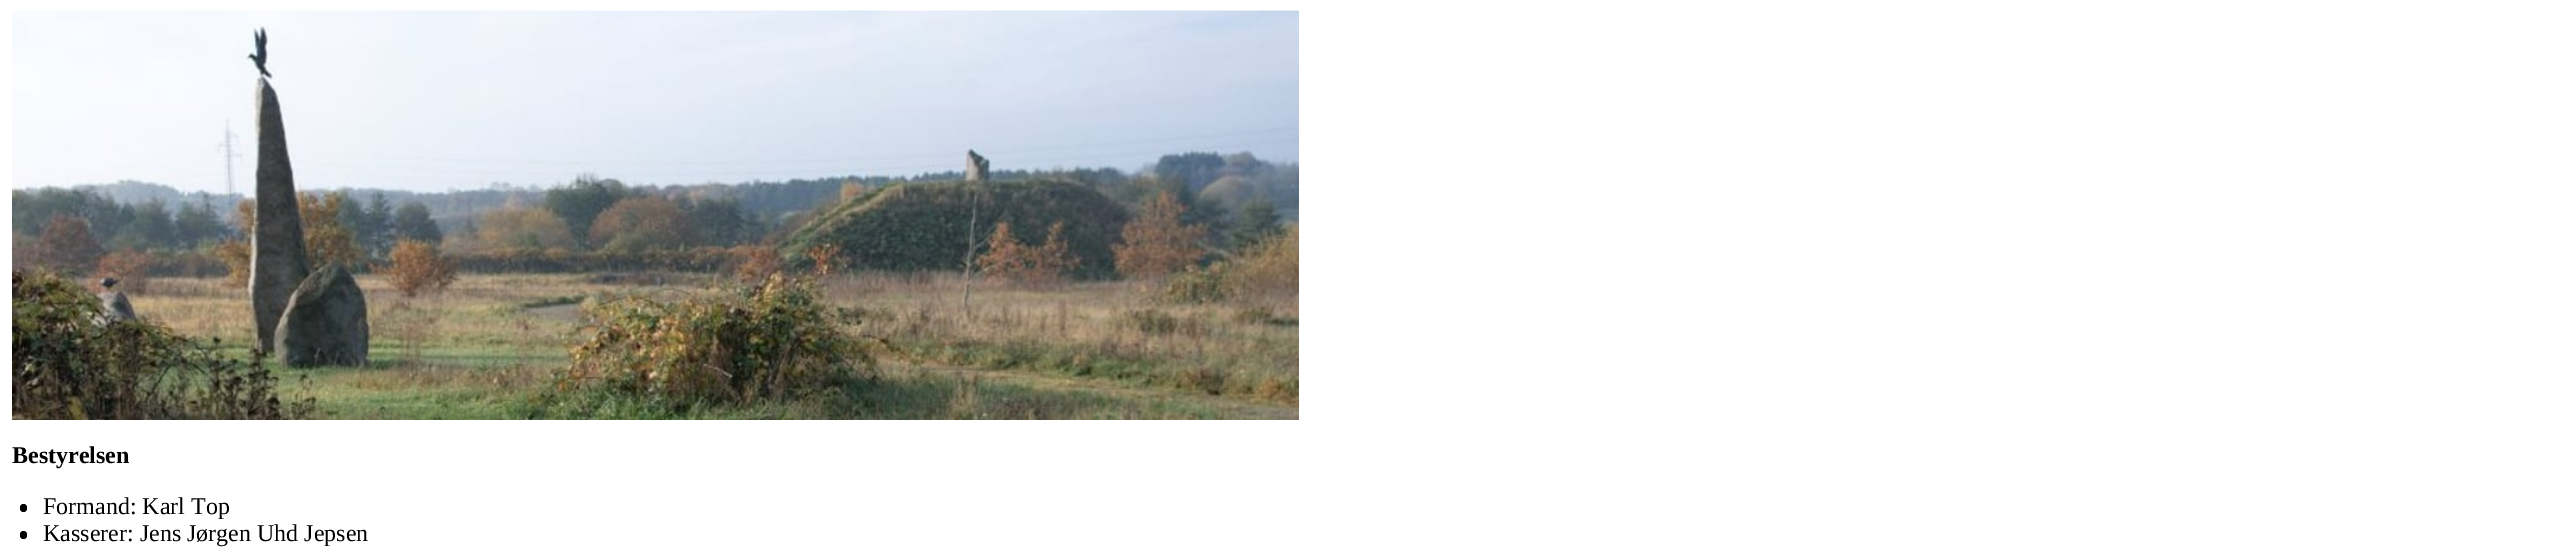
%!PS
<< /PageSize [2575 548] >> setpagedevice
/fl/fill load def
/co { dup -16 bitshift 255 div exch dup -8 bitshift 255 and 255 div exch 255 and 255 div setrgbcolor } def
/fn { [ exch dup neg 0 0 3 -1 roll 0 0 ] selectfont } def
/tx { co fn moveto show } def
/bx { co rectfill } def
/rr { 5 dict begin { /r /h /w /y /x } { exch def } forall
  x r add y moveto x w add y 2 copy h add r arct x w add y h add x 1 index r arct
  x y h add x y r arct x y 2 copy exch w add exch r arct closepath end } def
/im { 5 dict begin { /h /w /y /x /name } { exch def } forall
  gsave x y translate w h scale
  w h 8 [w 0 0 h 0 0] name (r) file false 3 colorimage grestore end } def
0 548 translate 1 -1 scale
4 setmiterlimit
0 0 2575 548 16#FFFFFF bx
(media/1.raw) 12 10 1287 410 im
16#000000 co
20 504 7 8 3.5 rr fl
20 531 7 8 3.5 rr fl
(Bestyrelsen) 12 463 /LiberationSerif-Bold 24 16#000000 tx
(Formand: Karl Top) 43 514 /LiberationSerif-Regular 24 16#000000 tx
(Kasserer: Jens Jørgen Uhd Jepsen) 43 541 /LiberationSerif-Regular 24 16#000000 tx
showpage
